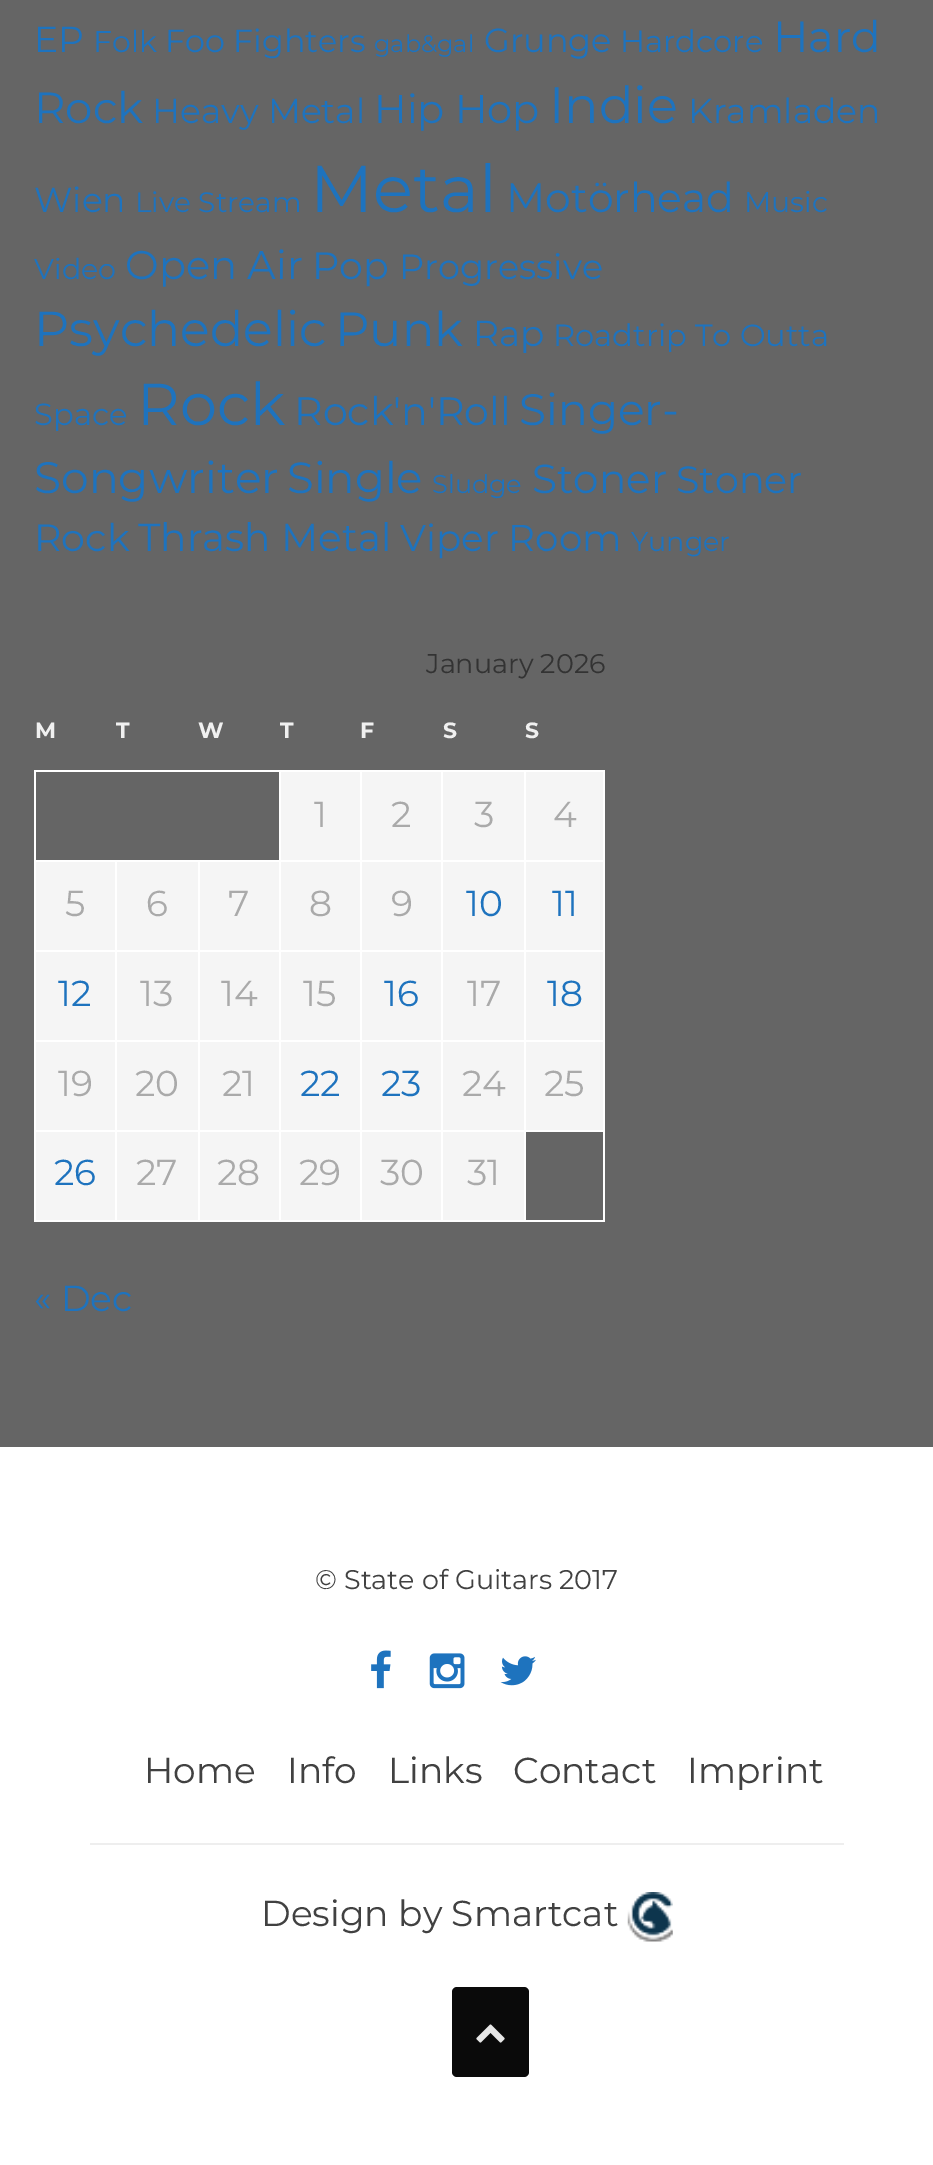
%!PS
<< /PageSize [933 2165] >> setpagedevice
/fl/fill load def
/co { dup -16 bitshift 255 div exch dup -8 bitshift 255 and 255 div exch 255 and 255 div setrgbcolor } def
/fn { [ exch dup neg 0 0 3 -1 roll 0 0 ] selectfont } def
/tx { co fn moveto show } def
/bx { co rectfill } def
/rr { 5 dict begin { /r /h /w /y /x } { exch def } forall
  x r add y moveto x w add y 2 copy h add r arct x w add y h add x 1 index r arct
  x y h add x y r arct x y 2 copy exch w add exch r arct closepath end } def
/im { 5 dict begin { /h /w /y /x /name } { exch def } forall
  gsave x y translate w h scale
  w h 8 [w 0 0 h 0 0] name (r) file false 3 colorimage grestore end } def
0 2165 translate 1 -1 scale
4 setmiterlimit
0 0 933 2165 16#656565 bx
524 770 81 2 16#FFFFFF bx
524 860 81 2 16#FFFFFF bx
524 950 81 2 16#FFFFFF bx
524 1040 81 2 16#FFFFFF bx
524 1130 81 2 16#FFFFFF bx
603 1130 2 92 16#FFFFFF bx
524 1220 81 2 16#FFFFFF bx
524 1130 2 92 16#FFFFFF bx
441 1130 86 2 16#FFFFFF bx
524 1040 2 92 16#FFFFFF bx
441 1040 86 2 16#FFFFFF bx
524 950 2 92 16#FFFFFF bx
441 950 86 2 16#FFFFFF bx
524 860 2 92 16#FFFFFF bx
441 860 86 2 16#FFFFFF bx
524 770 2 92 16#FFFFFF bx
441 770 86 2 16#FFFFFF bx
441 1220 86 2 16#FFFFFF bx
441 1130 2 92 16#FFFFFF bx
360 1130 83 2 16#FFFFFF bx
441 1040 2 92 16#FFFFFF bx
360 1040 83 2 16#FFFFFF bx
441 950 2 92 16#FFFFFF bx
360 950 83 2 16#FFFFFF bx
441 860 2 92 16#FFFFFF bx
360 860 83 2 16#FFFFFF bx
441 770 2 92 16#FFFFFF bx
360 770 83 2 16#FFFFFF bx
360 1220 83 2 16#FFFFFF bx
360 1130 2 92 16#FFFFFF bx
279 1130 83 2 16#FFFFFF bx
360 1040 2 92 16#FFFFFF bx
279 1040 83 2 16#FFFFFF bx
360 950 2 92 16#FFFFFF bx
279 950 83 2 16#FFFFFF bx
360 860 2 92 16#FFFFFF bx
279 860 83 2 16#FFFFFF bx
360 770 2 92 16#FFFFFF bx
279 770 83 2 16#FFFFFF bx
279 1220 83 2 16#FFFFFF bx
279 1130 2 92 16#FFFFFF bx
198 1130 83 2 16#FFFFFF bx
279 1040 2 92 16#FFFFFF bx
198 1040 83 2 16#FFFFFF bx
279 950 2 92 16#FFFFFF bx
198 950 83 2 16#FFFFFF bx
279 860 2 92 16#FFFFFF bx
198 860 83 2 16#FFFFFF bx
279 770 2 92 16#FFFFFF bx
34 770 247 2 16#FFFFFF bx
198 1220 83 2 16#FFFFFF bx
198 1130 2 92 16#FFFFFF bx
115 1130 85 2 16#FFFFFF bx
198 1040 2 92 16#FFFFFF bx
115 1040 85 2 16#FFFFFF bx
198 950 2 92 16#FFFFFF bx
115 950 85 2 16#FFFFFF bx
198 860 2 92 16#FFFFFF bx
115 860 85 2 16#FFFFFF bx
115 1220 85 2 16#FFFFFF bx
115 1130 2 92 16#FFFFFF bx
34 1130 83 2 16#FFFFFF bx
115 1040 2 92 16#FFFFFF bx
34 1040 83 2 16#FFFFFF bx
115 950 2 92 16#FFFFFF bx
34 950 83 2 16#FFFFFF bx
115 860 2 92 16#FFFFFF bx
34 860 83 2 16#FFFFFF bx
34 1220 83 2 16#FFFFFF bx
34 1130 2 92 16#FFFFFF bx
34 1040 2 92 16#FFFFFF bx
34 950 2 92 16#FFFFFF bx
34 860 2 92 16#FFFFFF bx
34 770 2 92 16#FFFFFF bx
281 772 79 88 16#F5F5F5 bx
362 772 79 88 16#F5F5F5 bx
443 772 81 88 16#F5F5F5 bx
526 772 77 88 16#F5F5F5 bx
603 1040 2 92 16#FFFFFF bx
603 950 2 92 16#FFFFFF bx
603 860 2 92 16#FFFFFF bx
603 770 2 92 16#FFFFFF bx
36 862 79 88 16#F5F5F5 bx
117 862 81 88 16#F5F5F5 bx
200 862 79 88 16#F5F5F5 bx
281 862 79 88 16#F5F5F5 bx
362 862 79 88 16#F5F5F5 bx
443 862 81 88 16#F5F5F5 bx
526 862 77 88 16#F5F5F5 bx
36 952 79 88 16#F5F5F5 bx
117 952 81 88 16#F5F5F5 bx
200 952 79 88 16#F5F5F5 bx
281 952 79 88 16#F5F5F5 bx
362 952 79 88 16#F5F5F5 bx
443 952 81 88 16#F5F5F5 bx
526 952 77 88 16#F5F5F5 bx
36 1042 79 88 16#F5F5F5 bx
117 1042 81 88 16#F5F5F5 bx
200 1042 79 88 16#F5F5F5 bx
281 1042 79 88 16#F5F5F5 bx
362 1042 79 88 16#F5F5F5 bx
443 1042 81 88 16#F5F5F5 bx
526 1042 77 88 16#F5F5F5 bx
36 1132 79 88 16#F5F5F5 bx
117 1132 81 88 16#F5F5F5 bx
200 1132 79 88 16#F5F5F5 bx
281 1132 79 88 16#F5F5F5 bx
362 1132 79 88 16#F5F5F5 bx
443 1132 81 88 16#F5F5F5 bx
0 1447 933 718 16#FFFFFF bx
(media/1.raw) 371 1650 20 39 im
(media/2.raw) 429 1653 36 36 im
(media/3.raw) 500 1656 36 30 im
90 1843 754 2 16#EEEEEE bx
(media/4.raw) 627 1892 46 50 im
16#0A0A0A co
452 1987 77 90 5 rr fl
(media/5.raw) 476 2024 29 19 im
(EP) 34 52 /Montserrat-Regular 36 16#1E73BE tx
(Folk) 93 52 /Montserrat-Regular 30 16#1E73BE tx
(Foo Fighters) 165 52 /Montserrat-Regular 31.75 16#1E73BE tx
(gab&gal) 374 52 /Montserrat-Regular 24 16#1E73BE tx
(Grunge) 484 52 /Montserrat-Regular 33.5 16#1E73BE tx
(Hardcore) 620 52 /Montserrat-Regular 30.6 16#1E73BE tx
(Hard) 773 52 /Montserrat-Regular 43.5 16#1E73BE tx
(Rock) 34 123 /Montserrat-Regular 43.5 16#1E73BE tx
(Heavy Metal) 152 123 /Montserrat-Regular 34.5 16#1E73BE tx
(Hip Hop) 374 123 /Montserrat-Regular 40 16#1E73BE tx
(Indie) 549 123 /Montserrat-Regular 51 16#1E73BE tx
(Kramladen) 688 123 /Montserrat-Regular 34.5 16#1E73BE tx
(Wien) 34 212 /Montserrat-Regular 34.5 16#1E73BE tx
(Live Stream) 135 212 /Montserrat-Regular 28 16#1E73BE tx
(Metal) 310 212 /Montserrat-Regular 66 16#1E73BE tx
(Motörhead) 506 212 /Montserrat-Regular 41 16#1E73BE tx
(Music) 744 212 /Montserrat-Regular 28.5 16#1E73BE tx
(Video) 34 279 /Montserrat-Regular 28.5 16#1E73BE tx
(Open Air) 125 279 /Montserrat-Regular 40 16#1E73BE tx
(Pop) 312 279 /Montserrat-Regular 38 16#1E73BE tx
(Progressive) 399 279 /Montserrat-Regular 35 16#1E73BE tx
(Psychedelic) 34 346 /Montserrat-Regular 49 16#1E73BE tx
(Punk) 335 346 /Montserrat-Regular 48 16#1E73BE tx
(Rap) 473 346 /Montserrat-Regular 36 16#1E73BE tx
(Roadtrip To Outta) 553 346 /Montserrat-Regular 30.6 16#1E73BE tx
(Space) 34 425 /Montserrat-Regular 30.6 16#1E73BE tx
(Rock) 137 425 /Montserrat-Regular 59 16#1E73BE tx
(Rock'n'Roll) 294 425 /Montserrat-Regular 39.5 16#1E73BE tx
(Singer-) 519 425 /Montserrat-Regular 44 16#1E73BE tx
(Songwriter) 34 493 /Montserrat-Regular 44 16#1E73BE tx
(Single) 287 493 /Montserrat-Regular 43.5 16#1E73BE tx
(Sludge) 432 493 /Montserrat-Regular 25.5 16#1E73BE tx
(Stoner) 532 493 /Montserrat-Regular 40.5 16#1E73BE tx
(Stoner) 676 493 /Montserrat-Regular 38 16#1E73BE tx
(Rock) 34 551 /Montserrat-Regular 38 16#1E73BE tx
(Thrash Metal) 138 551 /Montserrat-Regular 39 16#1E73BE tx
(Viper Room) 400 551 /Montserrat-Regular 37.25 16#1E73BE tx
(Yunger) 631 551 /Montserrat-Regular 27 16#1E73BE tx
(January 2026) 426 673 /Montserrat-Regular 27 16#333333 tx
(M) 35 738 /Montserrat-Bold 22 16#F0F0F0 tx
(T) 116 738 /Montserrat-Bold 22 16#F0F0F0 tx
(W) 198 738 /Montserrat-Bold 22 16#F0F0F0 tx
(T) 280 738 /Montserrat-Bold 22 16#F0F0F0 tx
(F) 360 738 /Montserrat-Bold 22 16#F0F0F0 tx
(S) 443 738 /Montserrat-Bold 22 16#F0F0F0 tx
(S) 525 738 /Montserrat-Bold 22 16#F0F0F0 tx
(1) 314 827 /Montserrat-Regular 36 16#AAAAAA tx
(2) 391 827 /Montserrat-Regular 36 16#AAAAAA tx
(3) 474 827 /Montserrat-Regular 36 16#AAAAAA tx
(4) 553 827 /Montserrat-Regular 36 16#AAAAAA tx
(5) 65 916 /Montserrat-Regular 36 16#AAAAAA tx
(6) 146 916 /Montserrat-Regular 36 16#AAAAAA tx
(7) 228 916 /Montserrat-Regular 36 16#AAAAAA tx
(8) 309 916 /Montserrat-Regular 36 16#AAAAAA tx
(9) 391 916 /Montserrat-Regular 36 16#AAAAAA tx
(10) 466 916 /Montserrat-Regular 36 16#1E73BE tx
(11) 552 916 /Montserrat-Regular 36 16#1E73BE tx
(12) 58 1006 /Montserrat-Regular 36 16#1E73BE tx
(13) 140 1006 /Montserrat-Regular 36 16#AAAAAA tx
(14) 221 1006 /Montserrat-Regular 36 16#AAAAAA tx
(15) 303 1006 /Montserrat-Regular 36 16#AAAAAA tx
(16) 384 1006 /Montserrat-Regular 36 16#1E73BE tx
(17) 467 1006 /Montserrat-Regular 36 16#AAAAAA tx
(18) 547 1006 /Montserrat-Regular 36 16#1E73BE tx
(19) 58 1096 /Montserrat-Regular 36 16#AAAAAA tx
(20) 135 1096 /Montserrat-Regular 36 16#AAAAAA tx
(21) 222 1096 /Montserrat-Regular 36 16#AAAAAA tx
(22) 300 1096 /Montserrat-Regular 36 16#1E73BE tx
(23) 381 1096 /Montserrat-Regular 36 16#1E73BE tx
(24) 462 1096 /Montserrat-Regular 36 16#AAAAAA tx
(25) 544 1096 /Montserrat-Regular 36 16#AAAAAA tx
(26) 54 1185 /Montserrat-Regular 36 16#1E73BE tx
(27) 136 1185 /Montserrat-Regular 36 16#AAAAAA tx
(28) 217 1185 /Montserrat-Regular 36 16#AAAAAA tx
(29) 299 1185 /Montserrat-Regular 36 16#AAAAAA tx
(30) 380 1185 /Montserrat-Regular 36 16#AAAAAA tx
(31) 467 1185 /Montserrat-Regular 36 16#AAAAAA tx
(« Dec) 34 1311 /Montserrat-Regular 36 16#1E73BE tx
(© State of Guitars 2017) 315 1589 /Montserrat-Regular 27 16#414141 tx
(Home) 144 1783 /Montserrat-Regular 36 16#414141 tx
(Info) 287 1783 /Montserrat-Regular 36 16#414141 tx
(Links) 388 1783 /Montserrat-Regular 36 16#414141 tx
(Contact) 513 1783 /Montserrat-Regular 36 16#414141 tx
(Imprint) 687 1783 /Montserrat-Regular 36 16#414141 tx
(Design by Smartcat) 261 1926 /Montserrat-Regular 36 16#414141 tx
showpage
